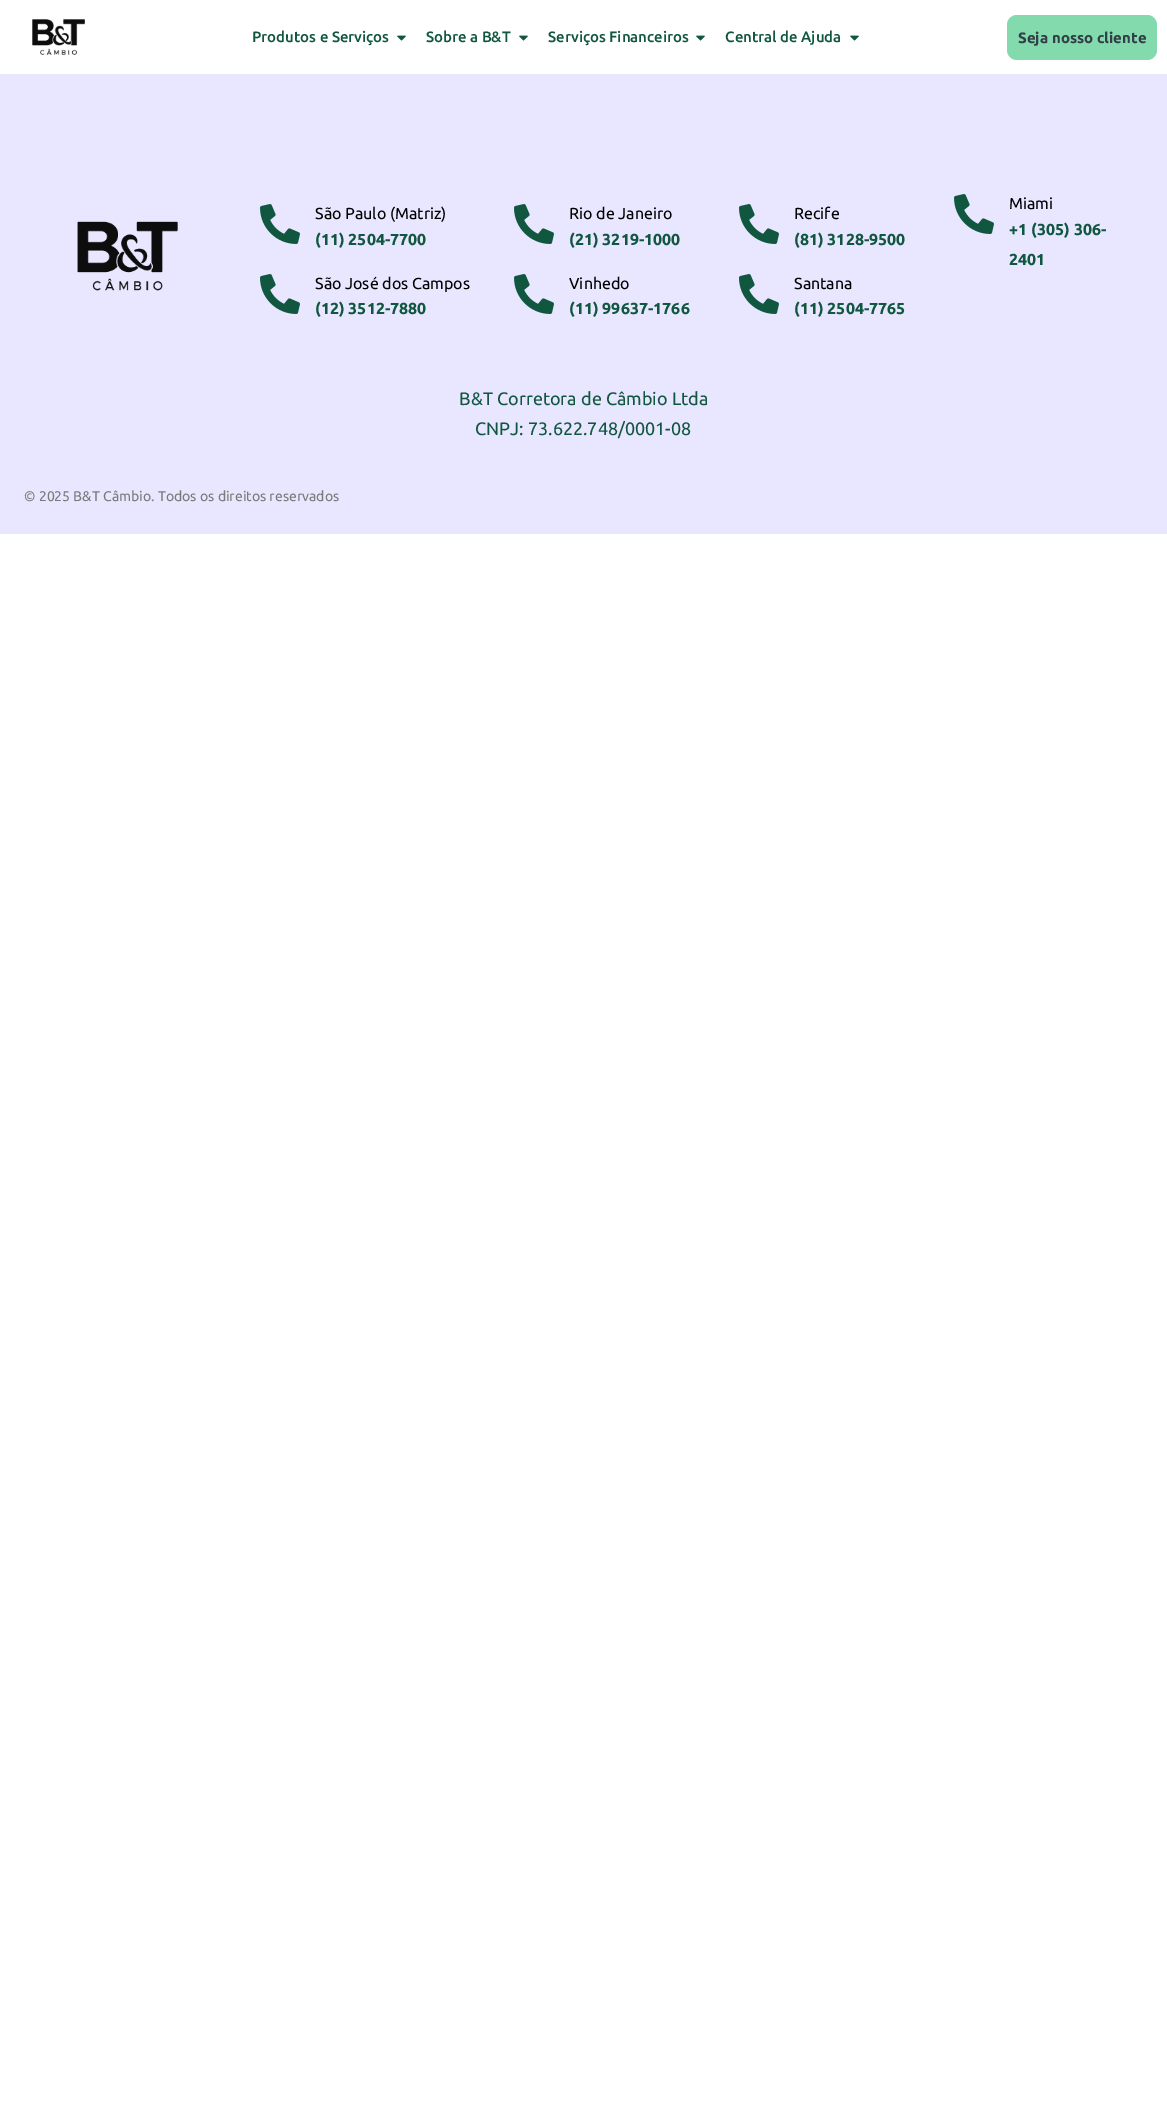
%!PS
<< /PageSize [1167 2104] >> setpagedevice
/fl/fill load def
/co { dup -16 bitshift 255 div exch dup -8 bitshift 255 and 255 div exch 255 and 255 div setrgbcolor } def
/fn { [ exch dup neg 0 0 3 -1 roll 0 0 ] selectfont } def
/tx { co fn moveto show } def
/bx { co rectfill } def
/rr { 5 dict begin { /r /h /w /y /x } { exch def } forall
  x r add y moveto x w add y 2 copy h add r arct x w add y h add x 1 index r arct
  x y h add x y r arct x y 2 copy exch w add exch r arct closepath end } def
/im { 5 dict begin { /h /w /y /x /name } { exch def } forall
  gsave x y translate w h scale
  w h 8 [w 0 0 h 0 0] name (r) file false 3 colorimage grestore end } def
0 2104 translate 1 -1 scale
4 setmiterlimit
0 0 1167 2104 16#FFFFFF bx
(media/1.raw) 32 19 53 36 im
(media/2.raw) 397 35 9 6 im
(media/2.raw) 519 35 9 6 im
(media/2.raw) 696 35 9 6 im
(media/2.raw) 850 35 9 6 im
16#83DBAD co
1007 15 150 45 10 rr fl
0 74 1167 460 16#E9E6FF bx
(media/3.raw) 77 221 101 70 im
(media/4.raw) 260 204 40 40 im
(media/4.raw) 260 274 40 40 im
(media/4.raw) 514 204 40 40 im
(media/4.raw) 514 274 40 40 im
(media/4.raw) 739 204 40 40 im
(media/4.raw) 739 274 40 40 im
(media/4.raw) 954 194 40 40 im
(Produtos e Serviços) 252 42 /Ubuntu-Medium 15 16#115740 tx
(Sobre a B&T) 426 42 /Ubuntu-Medium 15 16#115740 tx
(Serviços Financeiros) 548 42 /Ubuntu-Medium 15 16#115740 tx
(Central de Ajuda) 725 42 /Ubuntu-Medium 15 16#115740 tx
(Seja nosso cliente) 1018 43 /Ubuntu-Bold 15 16#333F48 tx
(São Paulo \(Matriz\)) 315 219 /Ubuntu-Regular 16 16#000000 tx
(\(11\) 2504-7700) 315 245 /Ubuntu-Bold 16 16#115740 tx
(São José dos Campos) 315 289 /Ubuntu-Regular 16 16#000000 tx
(\(12\) 3512-7880) 315 314 /Ubuntu-Bold 16 16#115740 tx
(Rio de Janeiro) 569 219 /Ubuntu-Regular 16 16#000000 tx
(\(21\) 3219-1000) 569 245 /Ubuntu-Bold 16 16#115740 tx
(Vinhedo) 569 289 /Ubuntu-Regular 16 16#000000 tx
(\(11\) 99637-1766) 569 314 /Ubuntu-Bold 16 16#115740 tx
(Recife) 794 219 /Ubuntu-Regular 16 16#000000 tx
(\(81\) 3128-9500) 794 245 /Ubuntu-Bold 16 16#115740 tx
(Santana) 794 289 /Ubuntu-Regular 16 16#000000 tx
(\(11\) 2504-7765) 794 314 /Ubuntu-Bold 16 16#115740 tx
(Miami) 1009 209 /Ubuntu-Regular 16 16#000000 tx
(+1 \(305\) 306-) 1009 235 /Ubuntu-Bold 16 16#115740 tx
(2401) 1009 265 /Ubuntu-Bold 16 16#115740 tx
(B&T Corretora de Câmbio Ltda) 459 405 /Ubuntu-Regular 18 16#115740 tx
(CNPJ: 73.622.748/0001-08) 475 435 /Ubuntu-Regular 18 16#115740 tx
(© 2025 B&T Câmbio. Todos os direitos reservados) 24 501 /Ubuntu-Regular 14 16#7A7A7A tx
showpage
